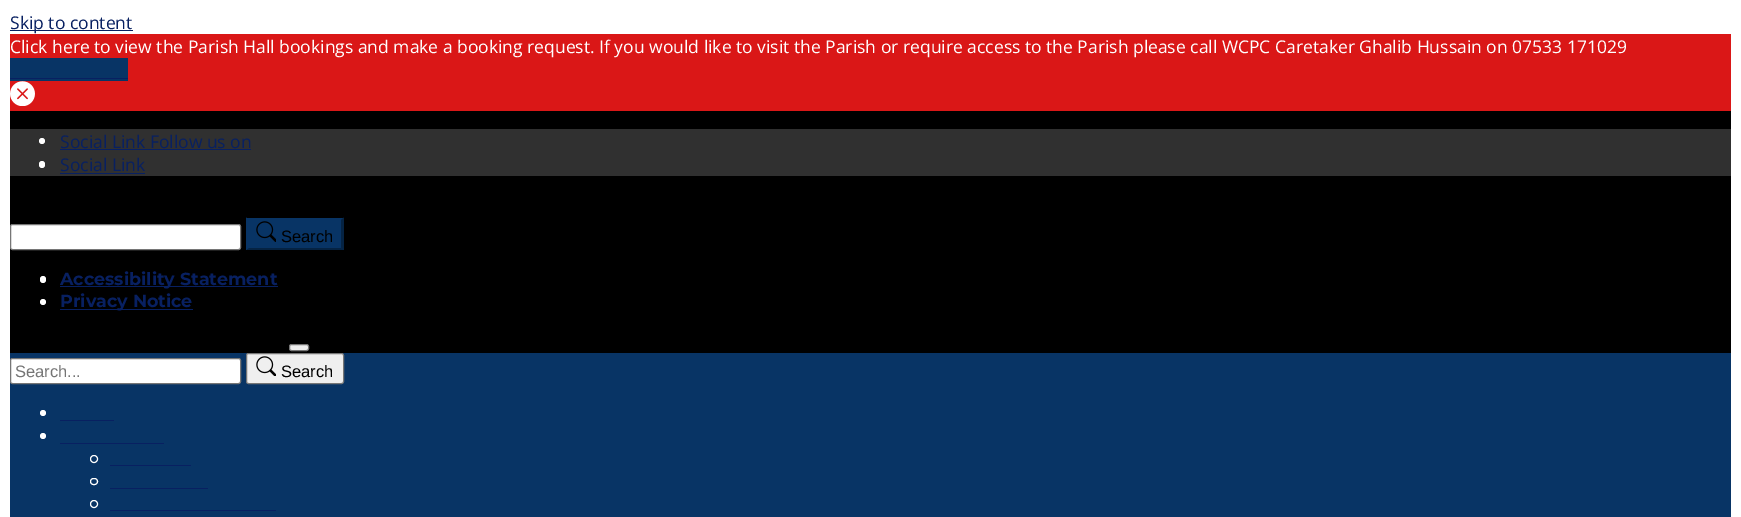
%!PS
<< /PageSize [1741 517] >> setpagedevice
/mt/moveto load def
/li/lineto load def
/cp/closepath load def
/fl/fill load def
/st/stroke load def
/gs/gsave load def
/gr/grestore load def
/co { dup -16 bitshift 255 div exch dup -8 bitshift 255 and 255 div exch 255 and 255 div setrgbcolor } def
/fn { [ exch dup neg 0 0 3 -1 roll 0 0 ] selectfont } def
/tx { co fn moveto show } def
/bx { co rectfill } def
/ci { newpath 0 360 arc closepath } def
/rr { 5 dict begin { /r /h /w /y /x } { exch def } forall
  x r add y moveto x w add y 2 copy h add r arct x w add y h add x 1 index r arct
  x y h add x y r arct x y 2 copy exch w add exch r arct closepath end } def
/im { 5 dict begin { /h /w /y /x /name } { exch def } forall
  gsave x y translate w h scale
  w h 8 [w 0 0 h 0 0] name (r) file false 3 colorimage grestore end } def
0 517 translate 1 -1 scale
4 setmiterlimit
0 0 1741 517 16#FFFFFF bx
10 30 123 1 16#082061 bx
10 111 1721 242 16#000000 bx
10 34 1721 77 16#DA1717 bx
10 58 118 23 16#083465 bx
10 78 118 1 16#082061 bx
(media/1.raw) 10 81 25 25 im
10 129 1721 47 16#303030 bx
16#FFFFFF co
42 141 3 ci fl
60 149 191 1 16#082061 bx
16#FFFFFF co
39 161 6 7 3 rr fl
60 173 85 1 16#082061 bx
16#FFFFFF co
10.5 224.5 230 25 2 rr gs fl gr
16#767676 co
st
246 218 98 32 16#083465 bx
16#052343 co
344 217.5 mt 344 250 li 341 247.5 li 341 220 li cp fl
344 250 mt 246 250 li 249 248 li 341 248 li cp fl
16#083465 co
246 250 mt 246 217.5 li 249 220 li 249 247.5 li cp fl
(media/2.raw) 256 221 20 21 im
16#FFFFFF co
40 276 6 7 3 rr fl
60 286 218 1 16#082061 bx
16#FFFFFF co
43 302 3 ci fl
60 309 133 1 16#082061 bx
10 353 1721 164 16#083465 bx
16#EFEFEF co
289.5 344.5 19 6 2 rr gs fl gr
16#767676 co
st
16#FFFFFF co
10.5 358.5 230 25 2 rr gs fl gr
16#767676 co
st
16#EFEFEF co
246.5 353.5 97 30 2 rr gs fl gr
16#767676 co
st
(media/3.raw) 256 356 20 20 im
16#FFFFFF co
43 413 3 ci fl
60 420 54 1 16#082061 bx
16#FFFFFF co
43 436 3 ci fl
60 443 104 1 16#082061 bx
16#FFFFFF co
94 459 3.5 ci st
110 465 81 1 16#082061 bx
16#FFFFFF co
90.5 478.5 7 6 3 rr st
110 488 98 1 16#082061 bx
16#FFFFFF co
94 504 3.5 ci st
110 510 166 1 16#082061 bx
(Skip to content) 10 29 /OpenSans-Regular 17.5 16#082061 tx
(Click here to view the Parish Hall bookings and make a booking request. If you would like to visit the Parish or require access to the Parish please call WCPC Caretaker Ghalib Hussain on 07533 171029) 10 53 /OpenSans-Regular 17.5 16#FFFFFF tx
(Social Link Follow us on) 60 148 /OpenSans-Regular 17.5 16#082061 tx
(Social Link) 60 171 /OpenSans-Regular 17.5 16#082061 tx
(Search) 281 242 /LiberationSans-Regular 16.5 16#000000 tx
(Accessibility Statement) 60 285 /Montserrat-Bold 17.5 16#082061 tx
(Privacy Notice) 60 307 /Montserrat-Bold 17.5 16#082061 tx
(Search...) 15 377 /LiberationSans-Regular 16.5 16#757575 tx
(Search) 281 377 /LiberationSans-Regular 16.5 16#000000 tx
showpage
